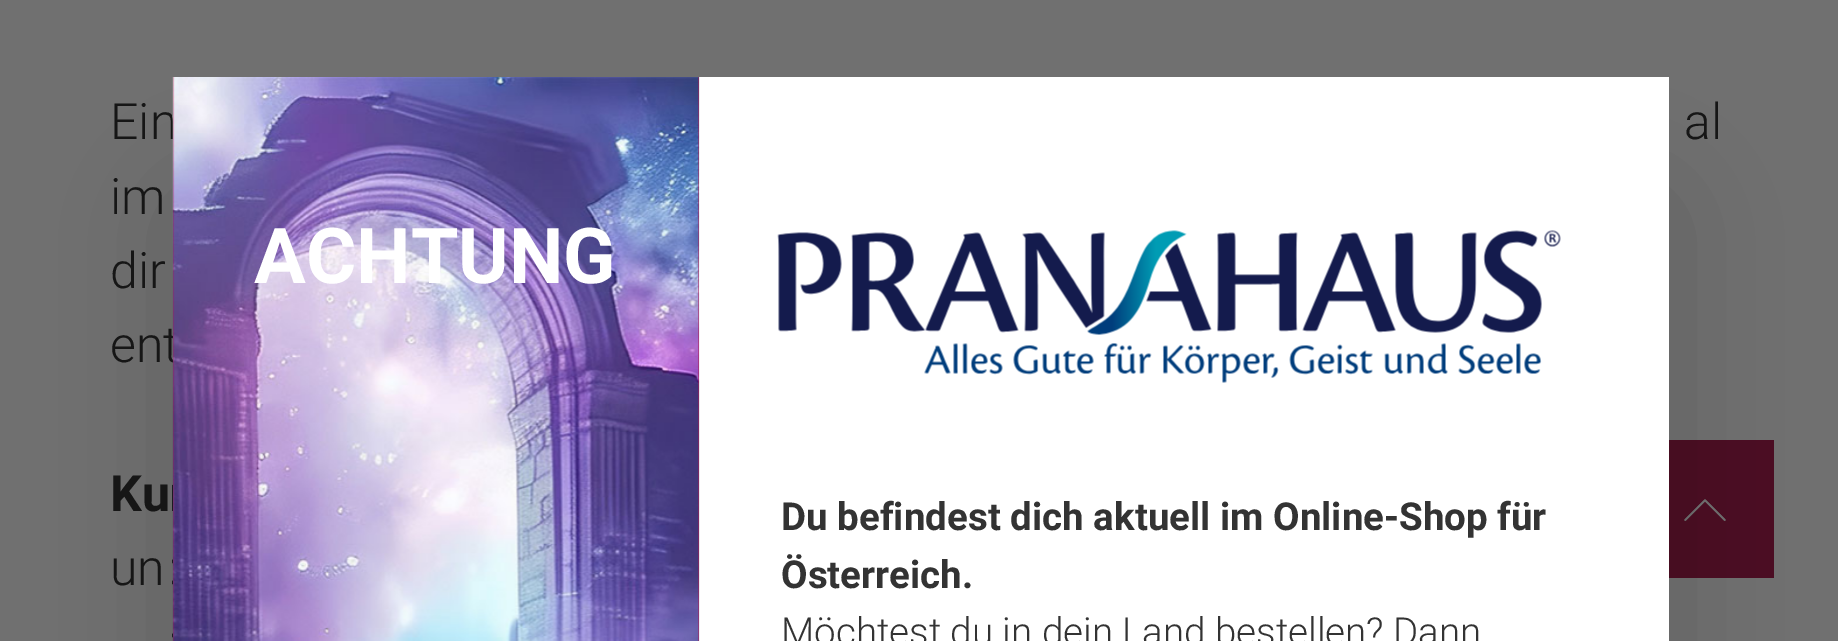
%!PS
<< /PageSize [1838 641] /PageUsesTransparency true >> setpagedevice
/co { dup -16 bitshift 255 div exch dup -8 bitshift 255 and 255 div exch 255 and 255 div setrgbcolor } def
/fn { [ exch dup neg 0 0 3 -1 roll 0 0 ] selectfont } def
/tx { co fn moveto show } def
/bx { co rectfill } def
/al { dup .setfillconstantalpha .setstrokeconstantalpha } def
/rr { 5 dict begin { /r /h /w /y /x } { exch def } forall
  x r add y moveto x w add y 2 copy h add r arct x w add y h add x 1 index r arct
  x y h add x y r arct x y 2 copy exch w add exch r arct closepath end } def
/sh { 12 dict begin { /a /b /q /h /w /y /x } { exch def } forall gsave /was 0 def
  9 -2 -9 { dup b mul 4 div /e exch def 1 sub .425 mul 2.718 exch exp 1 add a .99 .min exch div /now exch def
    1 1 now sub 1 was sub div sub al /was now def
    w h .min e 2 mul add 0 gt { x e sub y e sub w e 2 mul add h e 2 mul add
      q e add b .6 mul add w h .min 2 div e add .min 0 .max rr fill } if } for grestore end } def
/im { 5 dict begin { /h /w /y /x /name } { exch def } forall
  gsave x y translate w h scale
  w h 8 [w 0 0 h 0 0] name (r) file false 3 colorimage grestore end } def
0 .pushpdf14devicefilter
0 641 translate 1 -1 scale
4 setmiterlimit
0 0 1838 641 16#707070 bx
1669 440 105 138 16#4C0D23 bx
(media/3.raw) 1684 499 42 22 im
16#000000 co
190 212 1463 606 0 59 .2 sh
699 77 970 564 16#FFFFFF bx
(media/2.raw) 777 230 784 153 im
(Ein) 110 139 /Roboto-Light 50 16#161616 tx
(al) 1684 139 /Roboto-Light 50 16#161616 tx
(im) 110 214 /Roboto-Light 50 16#161616 tx
(dir) 110 288 /Roboto-Light 50 16#161616 tx
(ent) 110 362 /Roboto-Light 50 16#161616 tx
(Ku) 110 511 /Roboto-Bold 50 16#161616 tx
(un) 110 585 /Roboto-Light 50 16#161616 tx
173 77 526 564 16#AC1E4F bx
(media/1.raw) 172 77 528 564 im
(ACHTUNG) 254 283 /Roboto-Bold 77 16#FFFFFF tx
(Du befindest dich aktuell im Online-Shop für) 781 530 /Roboto-Bold 38.5 16#333333 tx
(Österreich.) 781 588 /Roboto-Bold 38.5 16#333333 tx
(Möchtest du in dein Land bestellen? Dann) 781 645 /Roboto-Light 38.5 16#333333 tx
.poppdf14devicefilter showpage
